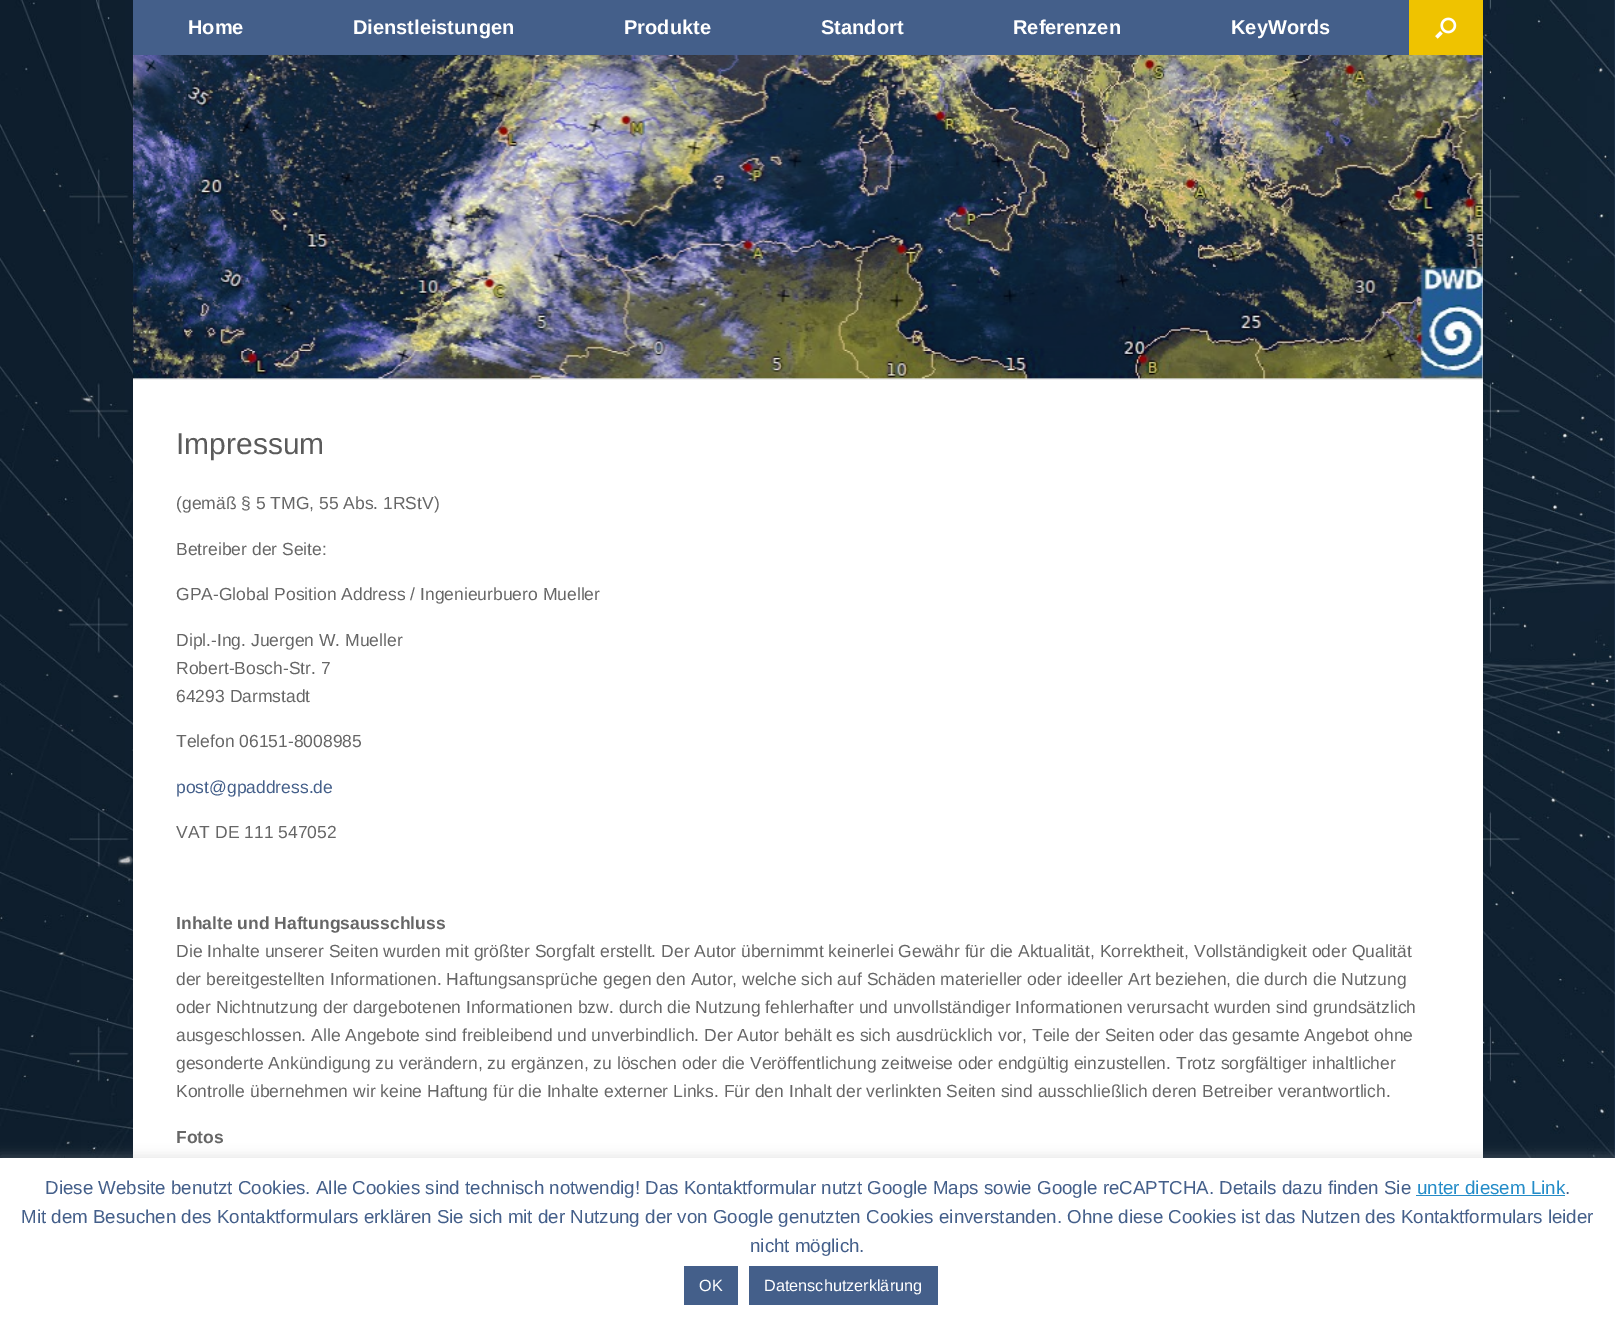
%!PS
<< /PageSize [1615 1319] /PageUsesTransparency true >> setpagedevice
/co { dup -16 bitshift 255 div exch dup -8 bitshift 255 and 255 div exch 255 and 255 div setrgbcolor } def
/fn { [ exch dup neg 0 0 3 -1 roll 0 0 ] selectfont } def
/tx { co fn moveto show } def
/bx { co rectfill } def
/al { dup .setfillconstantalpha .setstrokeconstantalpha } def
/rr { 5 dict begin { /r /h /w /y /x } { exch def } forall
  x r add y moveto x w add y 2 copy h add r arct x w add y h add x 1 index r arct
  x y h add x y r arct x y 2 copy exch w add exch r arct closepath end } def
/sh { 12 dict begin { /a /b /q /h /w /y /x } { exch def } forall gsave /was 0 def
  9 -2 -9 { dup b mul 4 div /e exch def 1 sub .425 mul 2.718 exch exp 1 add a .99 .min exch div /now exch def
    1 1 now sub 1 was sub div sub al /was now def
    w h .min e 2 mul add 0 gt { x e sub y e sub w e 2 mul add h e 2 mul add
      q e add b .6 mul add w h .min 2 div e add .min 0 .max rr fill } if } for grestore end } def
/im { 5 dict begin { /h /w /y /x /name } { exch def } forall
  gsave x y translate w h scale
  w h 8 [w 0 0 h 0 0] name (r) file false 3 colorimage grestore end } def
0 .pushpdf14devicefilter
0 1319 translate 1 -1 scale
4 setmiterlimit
0 0 1615 1319 16#FFFFFF bx
(media/1.raw) 0 0 1615 1158 im
133 0 1276 55 16#445F8A bx
1409 0 74 55 16#EFC300 bx
(media/2.raw) 1435 17 22 22 im
133 55 1350 325 16#EEEEEE bx
(media/3.raw) 133 55 1350 324 im
133 380 1350 778 16#FFFFFF bx
16#ACABAB co
0 1156 1615 163 0 6 .3 sh
0 1158 1615 161 16#FFFFFF bx
1416 1195 149 1 16#248CC8 bx
684 1266 54 39 16#445F8A bx
749 1266 189 39 16#445F8A bx
(Home) 188 34 /LiberationSans-Bold 20 16#FFFFFF tx
(Dienstleistungen) 353 34 /LiberationSans-Bold 20 16#FFFFFF tx
(Produkte) 624 34 /LiberationSans-Bold 20 16#FFFFFF tx
(Standort) 821 34 /LiberationSans-Bold 20 16#FFFFFF tx
(Referenzen) 1013 34 /LiberationSans-Bold 20 16#FFFFFF tx
(KeyWords) 1231 34 /LiberationSans-Bold 20 16#FFFFFF tx
(Impressum) 176 454 /LiberationSans-Regular 30 16#5B5B5B tx
(\(gemäß § 5 TMG, 55 Abs. 1RStV\)) 176 509 /LiberationSans-Regular 17.5 16#666666 tx
(Betreiber der Seite:) 176 555 /LiberationSans-Regular 17.5 16#666666 tx
(GPA-Global Position Address / Ingenieurbuero Mueller) 176 600 /LiberationSans-Regular 17.5 16#666666 tx
(Dipl.-Ing. Juergen W. Mueller) 176 646 /LiberationSans-Regular 17.5 16#666666 tx
(Robert-Bosch-Str. 7) 176 674 /LiberationSans-Regular 17.5 16#666666 tx
(64293 Darmstadt) 176 702 /LiberationSans-Regular 17.5 16#666666 tx
(Telefon 06151-8008985) 176 747 /LiberationSans-Regular 17.5 16#666666 tx
(post@gpaddress.de) 176 793 /LiberationSans-Regular 17.5 16#445F8A tx
(VAT DE 111 547052) 176 838 /LiberationSans-Regular 17.5 16#666666 tx
(Inhalte und Haftungsausschluss) 176 929 /LiberationSans-Bold 17.5 16#666666 tx
(Die Inhalte unserer Seiten wurden mit größter Sorgfalt erstellt. Der Autor übernimmt keinerlei Gewähr für die Aktualität, Korrektheit, Vollständigkeit oder Qualität) 176 957 /LiberationSans-Regular 17.5 16#666666 tx
(der bereitgestellten Informationen. Haftungsansprüche gegen den Autor, welche sich auf Schäden materieller oder ideeller Art beziehen, die durch die Nutzung) 176 985 /LiberationSans-Regular 17.5 16#666666 tx
(oder Nichtnutzung der dargebotenen Informationen bzw. durch die Nutzung fehlerhafter und unvollständiger Informationen verursacht wurden sind grundsätzlich) 176 1013 /LiberationSans-Regular 17.5 16#666666 tx
(ausgeschlossen. Alle Angebote sind freibleibend und unverbindlich. Der Autor behält es sich ausdrücklich vor, Teile der Seiten oder das gesamte Angebot ohne) 176 1041 /LiberationSans-Regular 17.5 16#666666 tx
(gesonderte Ankündigung zu verändern, zu ergänzen, zu löschen oder die Veröffentlichung zeitweise oder endgültig einzustellen. Trotz sorgfältiger inhaltlicher) 176 1069 /LiberationSans-Regular 17.5 16#666666 tx
(Kontrolle übernehmen wir keine Haftung für die Inhalte externer Links. Für den Inhalt der verlinkten Seiten sind ausschließlich deren Betreiber verantwortlich.) 176 1097 /LiberationSans-Regular 17.5 16#666666 tx
(Fotos) 176 1143 /LiberationSans-Bold 17.5 16#666666 tx
(Diese Website benutzt Cookies. Alle Cookies sind technisch notwendig! Das Kontaktformular nutzt Google Maps sowie Google reCAPTCHA. Details dazu finden Sie) 45 1194 /LiberationSans-Regular 18.75 16#445F8A tx
(unter diesem Link) 1417 1194 /LiberationSans-Regular 18.75 16#248CC8 tx
(.) 1565 1194 /LiberationSans-Regular 18.75 16#445F8A tx
(Mit dem Besuchen des Kontaktformulars erklären Sie sich mit der Nutzung der von Google genutzten Cookies einverstanden. Ohne diese Cookies ist das Nutzen des Kontaktformulars leider) 21 1223 /LiberationSans-Regular 18.75 16#445F8A tx
(nicht möglich.) 750 1252 /LiberationSans-Regular 18.75 16#445F8A tx
(OK) 699 1291 /LiberationSans-Regular 16.25 16#FFFFFF tx
(Datenschutzerklärung) 764 1291 /LiberationSans-Regular 16.25 16#FFFFFF tx
.poppdf14devicefilter showpage
